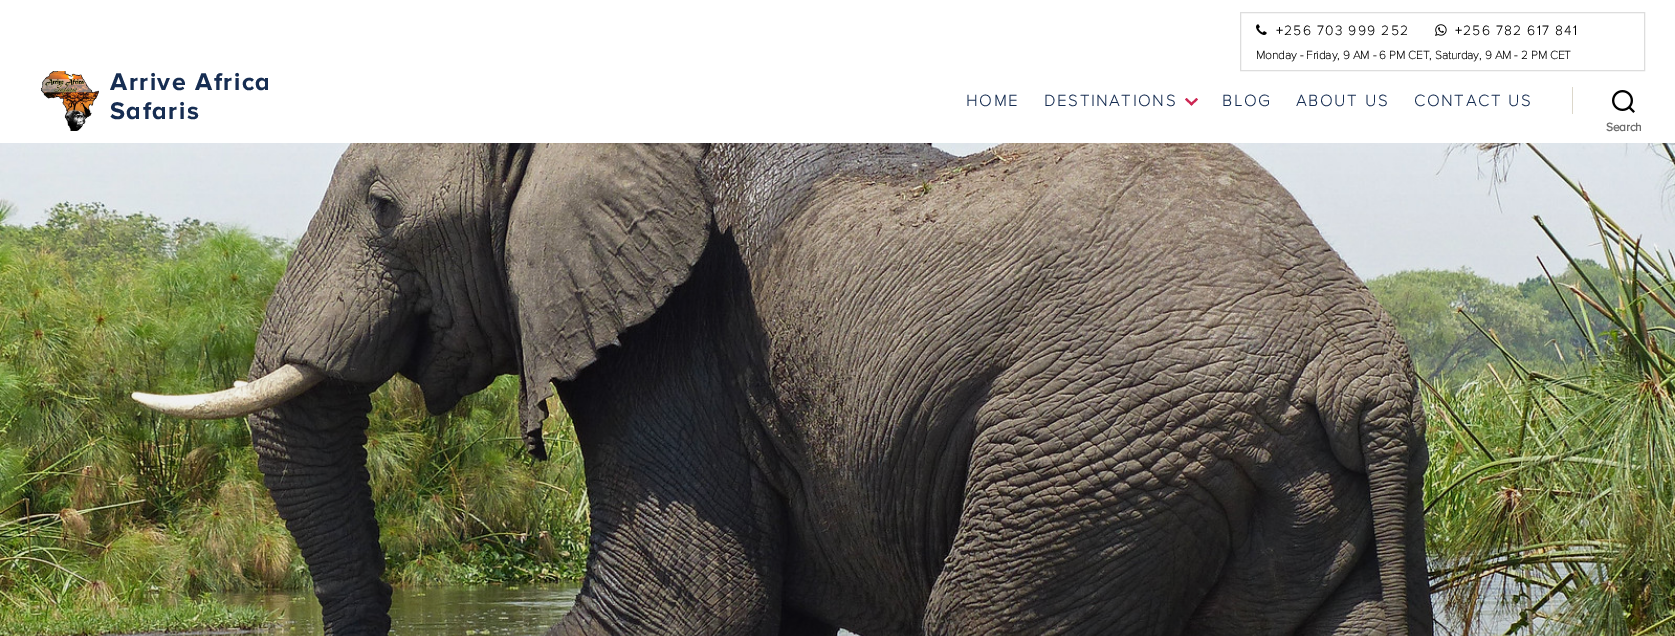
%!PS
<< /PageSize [1675 636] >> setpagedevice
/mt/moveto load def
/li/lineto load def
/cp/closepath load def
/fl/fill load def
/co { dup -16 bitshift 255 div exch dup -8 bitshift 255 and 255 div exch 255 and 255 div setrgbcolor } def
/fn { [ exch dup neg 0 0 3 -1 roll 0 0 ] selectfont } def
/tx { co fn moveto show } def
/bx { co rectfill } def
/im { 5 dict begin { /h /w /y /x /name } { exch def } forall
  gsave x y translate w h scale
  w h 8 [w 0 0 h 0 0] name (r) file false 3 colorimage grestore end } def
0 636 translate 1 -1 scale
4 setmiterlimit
0 0 1675 636 16#FFFFFF bx
16#DDDDDD co
1240.5 12.5 404 58 rectstroke
(media/1.raw) 1256 24 11 11 im
(media/2.raw) 1435 24 12 12 im
(media/3.raw) 40 71 59 60 im
16#CD2653 co
1185 99.5 mt 1186.5 98 li 1193 104 li 1191.5 105.5 li cp fl
1190 104 mt 1196.5 98 li 1198 99.5 li 1191.5 105.5 li cp fl
1572 87 1 27 16#DCD7CA bx
(media/4.raw) 1612 90 23 23 im
(media/5.raw) 0 143 1675 493 im
/ProximaNova-Bold 13.5 fn
16#000000 co
1276 35 mt 1.5 0 (+256 703 999 252) ashow
1455 35 mt 1.5 0 (+256 782 617 841) ashow
(Monday - Friday, 9 AM - 6 PM CET, Saturday, 9 AM - 2 PM CET) 1256 59 /ProximaNova-Bold 11.9 16#000000 tx
/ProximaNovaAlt-Bold 25 fn
16#162D52 co
110 90 mt 1.5 0 (Arrive Africa) ashow
110 119 mt 1.5 0 (Safaris) ashow
/ProximaNova-Bold 16.25 fn
966 106 mt 2 0 (HOME) ashow
1044 106 mt 2 0 (DESTINATIONS) ashow
1222 106 mt 2 0 (BLOG) ashow
1296 106 mt 2 0 (ABOUT US) ashow
1414 106 mt 2 0 (CONTACT US) ashow
/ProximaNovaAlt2-Bold 12 fn
16#6D6D6D co
1606 131 mt -.25 0 (Search) ashow
showpage
